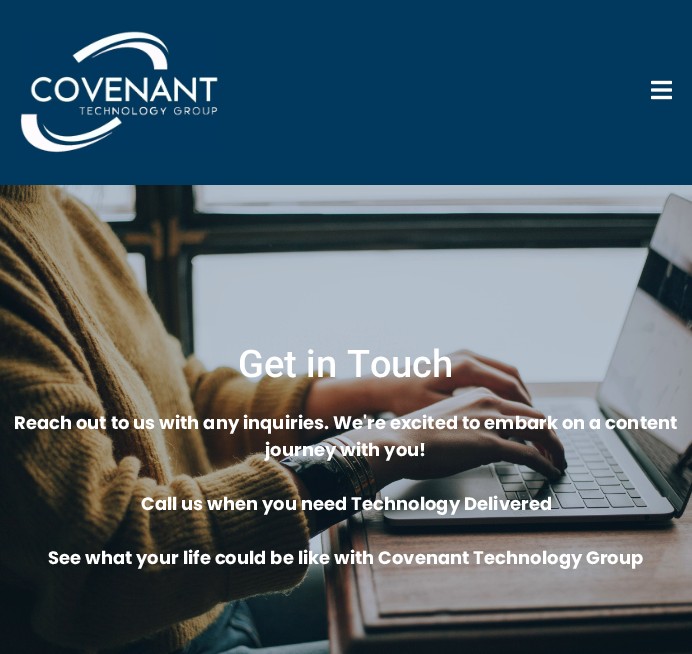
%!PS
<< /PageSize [692 654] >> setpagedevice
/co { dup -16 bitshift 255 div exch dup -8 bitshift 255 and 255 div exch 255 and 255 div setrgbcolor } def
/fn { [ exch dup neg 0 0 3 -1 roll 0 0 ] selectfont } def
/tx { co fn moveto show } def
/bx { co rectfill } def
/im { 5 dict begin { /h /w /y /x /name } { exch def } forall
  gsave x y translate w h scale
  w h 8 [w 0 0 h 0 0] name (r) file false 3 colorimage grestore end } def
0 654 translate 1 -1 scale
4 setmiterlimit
0 0 692 654 16#FFFFFF bx
0 0 692 185 16#01395E bx
(media/1.raw) 20 30 198 123 im
(media/2.raw) 651 80 21 20 im
(media/3.raw) 0 185 692 469 im
(Get in Touch) 238 377 /Roboto-Medium 38 16#FFFFFF tx
(Reach out to us with any inquiries. We're excited to embark on a content) 14 429 /Poppins-Bold 18 16#FFFFFF tx
(journey with you!) 265 456 /Poppins-Bold 18 16#FFFFFF tx
(Call us when you need Technology Delivered) 141 510 /Poppins-Bold 18 16#FFFFFF tx
(See what your life could be like with Covenant Technology Group) 48 564 /Poppins-Bold 18 16#FFFFFF tx
showpage
